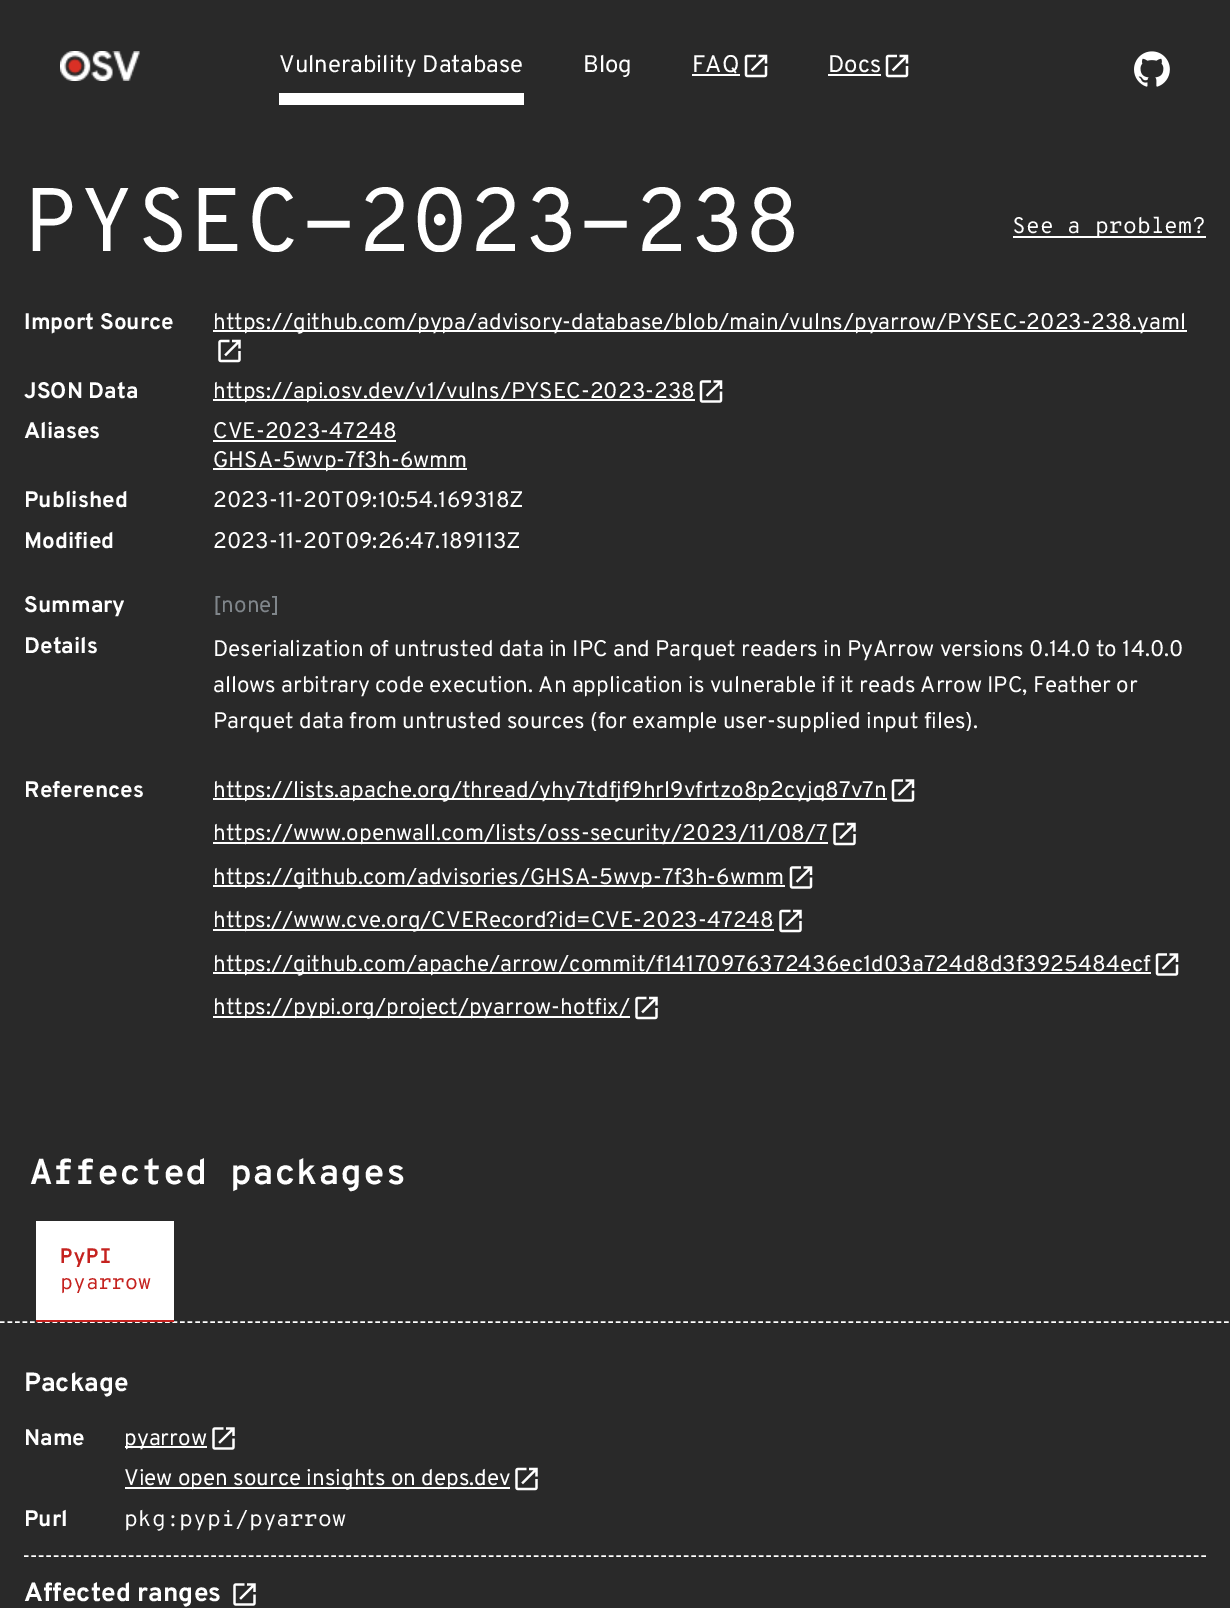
%!PS
<< /PageSize [1230 1608] >> setpagedevice
/mt/moveto load def
/li/lineto load def
/st/stroke load def
/lw/setlinewidth load def
/co { dup -16 bitshift 255 div exch dup -8 bitshift 255 and 255 div exch 255 and 255 div setrgbcolor } def
/fn { [ exch dup neg 0 0 3 -1 roll 0 0 ] selectfont } def
/tx { co fn moveto show } def
/bx { co rectfill } def
/im { 5 dict begin { /h /w /y /x /name } { exch def } forall
  gsave x y translate w h scale
  w h 8 [w 0 0 h 0 0] name (r) file false 3 colorimage grestore end } def
0 1608 translate 1 -1 scale
4 setmiterlimit
0 0 1230 1608 16#292929 bx
(media/1.raw) 60 51 80 30 im
279 93 245 12 16#FFFFFF bx
692 74 48 2 16#FFFFFF bx
(media/2.raw) 744 54 24 24 im
828 74 53 2 16#FFFFFF bx
(media/2.raw) 885 54 24 24 im
(media/3.raw) 1134 51 36 36 im
1013 236 193 2 16#FFFFFF bx
213 330 974 2 16#FFFFFF bx
(media/4.raw) 218 339 23 24 im
213 399 482 2 16#FFFFFF bx
(media/5.raw) 699 380 24 23 im
213 440 183 2 16#FFFFFF bx
213 468 254 2 16#FFFFFF bx
213 798 674 2 16#FFFFFF bx
(media/5.raw) 891 779 24 23 im
213 842 615 2 16#FFFFFF bx
(media/4.raw) 833 822 23 24 im
213 885 572 2 16#FFFFFF bx
(media/5.raw) 789 866 24 23 im
213 929 561 2 16#FFFFFF bx
(media/4.raw) 779 909 23 24 im
213 972 938 2 16#FFFFFF bx
(media/5.raw) 1155 953 24 23 im
213 1016 417 2 16#FFFFFF bx
(media/4.raw) 635 996 23 24 im
36 1221 138 99 16#FFFFFF bx
1.5 lw
[4.5 3.01] 0 setdash
0 1322 mt 1230 1322 li st
36 1320 138 2 16#C5221F bx
16#FFFFFF co
[4.5 3] 0 setdash
24 1556 mt 1206 1556 li st
125 1446 82 2 16#FFFFFF bx
(media/6.raw) 212 1427 23 23 im
125 1487 385 2 16#FFFFFF bx
(media/4.raw) 515 1467 23 24 im
(media/6.raw) 233 1583 23 23 im
(Vulnerability Database) 279 72 /Overpass-Regular 24 16#FFFFFF tx
(Blog) 583 72 /Overpass-Regular 24 16#FFFFFF tx
(FAQ) 692 72 /Overpass-Regular 24 16#FFFFFF tx
(Docs) 828 72 /Overpass-Regular 24 16#FFFFFF tx
(PYSEC-2023-238) 24 251 /OverpassMono-Regular 90 16#FFFFFF tx
(See a problem?) 1012 233 /OverpassMono-Regular 22.5 16#FFFFFF tx
(Import Source) 24 329 /Overpass-Bold 22.5 16#FFFFFF tx
(https://github.com/pypa/advisory-database/blob/main/vulns/pyarrow/PYSEC-2023-238.yaml) 213 329 /Overpass-Regular 22.5 16#FFFFFF tx
(JSON Data) 24 398 /Overpass-Bold 22.5 16#FFFFFF tx
(https://api.osv.dev/v1/vulns/PYSEC-2023-238) 213 398 /Overpass-Regular 22.5 16#FFFFFF tx
(Aliases) 24 438 /Overpass-Bold 22.5 16#FFFFFF tx
(CVE-2023-47248) 213 438 /Overpass-Regular 22.5 16#FFFFFF tx
(GHSA-5wvp-7f3h-6wmm) 213 467 /Overpass-Regular 22.5 16#FFFFFF tx
(Published) 24 507 /Overpass-Bold 22.5 16#FFFFFF tx
(2023-11-20T09:10:54.169318Z) 213 507 /Overpass-Regular 22.5 16#FFFFFF tx
(Modified) 24 548 /Overpass-Bold 22.5 16#FFFFFF tx
(2023-11-20T09:26:47.189113Z) 213 548 /Overpass-Regular 22.5 16#FFFFFF tx
(Summary) 24 612 /Overpass-Bold 22.5 16#FFFFFF tx
([none]) 213 612 /Overpass-Regular 22.5 16#80868B tx
(Details) 24 653 /Overpass-Bold 22.5 16#FFFFFF tx
(Deserialization of untrusted data in IPC and Parquet readers in PyArrow versions 0.14.0 to 14.0.0) 213 656 /Overpass-Regular 22.5 16#FFFFFF tx
(allows arbitrary code execution. An application is vulnerable if it reads Arrow IPC, Feather or) 213 692 /Overpass-Regular 22.5 16#FFFFFF tx
(Parquet data from untrusted sources \(for example user-supplied input files\).) 213 728 /Overpass-Regular 22.5 16#FFFFFF tx
(References) 24 797 /Overpass-Bold 22.5 16#FFFFFF tx
(https://lists.apache.org/thread/yhy7tdfjf9hrl9vfrtzo8p2cyjq87v7n) 213 797 /Overpass-Regular 22.5 16#FFFFFF tx
(https://www.openwall.com/lists/oss-security/2023/11/08/7) 213 840 /Overpass-Regular 22.5 16#FFFFFF tx
(https://github.com/advisories/GHSA-5wvp-7f3h-6wmm) 213 884 /Overpass-Regular 22.5 16#FFFFFF tx
(https://www.cve.org/CVERecord?id=CVE-2023-47248) 213 927 /Overpass-Regular 22.5 16#FFFFFF tx
(https://github.com/apache/arrow/commit/f14170976372436ec1d03a724d8d3f3925484ecf) 213 971 /Overpass-Regular 22.5 16#FFFFFF tx
(https://pypi.org/project/pyarrow-hotfix/) 213 1014 /Overpass-Regular 22.5 16#FFFFFF tx
(Affected packages) 30 1184 /OverpassMono-Bold 36 16#FFFFFF tx
(PyPI) 60 1263 /OverpassMono-Bold 21 16#C5221F tx
(pyarrow) 60 1289 /OverpassMono-Regular 21 16#C5221F tx
(Package) 24 1391 /Overpass-Bold 26.25 16#FFFFFF tx
(Name) 24 1445 /Overpass-Bold 22.5 16#FFFFFF tx
(pyarrow) 124 1445 /Overpass-Regular 22.5 16#FFFFFF tx
(View open source insights on deps.dev) 124 1485 /Overpass-Regular 22.5 16#FFFFFF tx
(Purl) 24 1526 /Overpass-Bold 22.5 16#FFFFFF tx
(pkg:pypi/pyarrow) 124 1526 /OverpassMono-Regular 22.5 16#FFFFFF tx
(Affected ranges) 24 1601 /Overpass-Bold 26.25 16#FFFFFF tx
showpage
